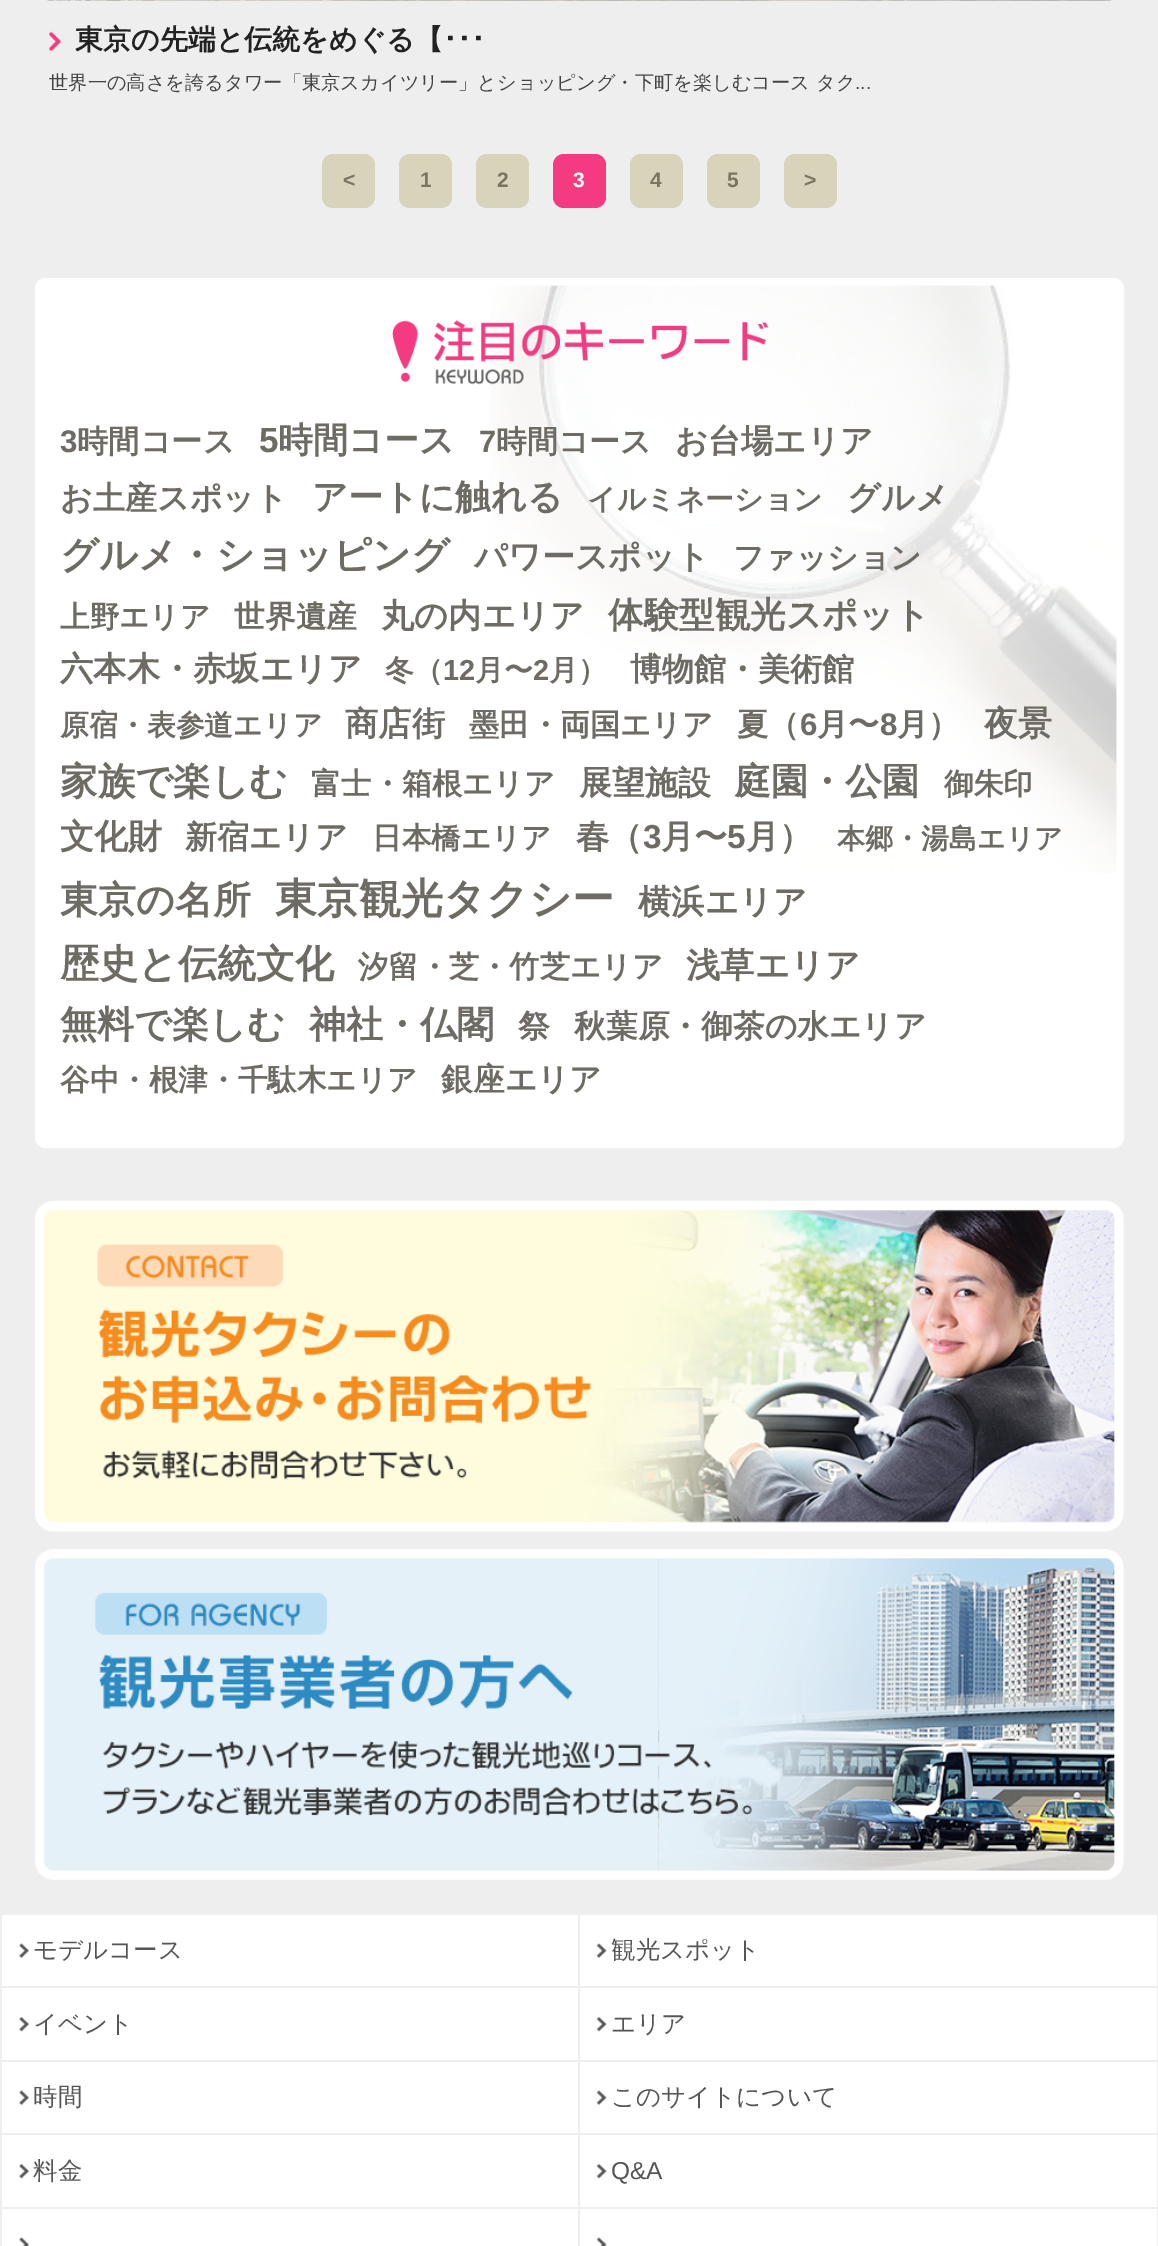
%!PS
<< /PageSize [1158 2246] >> setpagedevice
/fl/fill load def
/st/stroke load def
/lw/setlinewidth load def
/co { dup -16 bitshift 255 div exch dup -8 bitshift 255 and 255 div exch 255 and 255 div setrgbcolor } def
/fn { [ exch dup neg 0 0 3 -1 roll 0 0 ] selectfont } def
/tx { co fn moveto show } def
/bx { co rectfill } def
/rr { 5 dict begin { /r /h /w /y /x } { exch def } forall
  x r add y moveto x w add y 2 copy h add r arct x w add y h add x 1 index r arct
  x y h add x y r arct x y 2 copy exch w add exch r arct closepath end } def
/im { 5 dict begin { /h /w /y /x /name } { exch def } forall
  gsave x y translate w h scale
  w h 8 [w 0 0 h 0 0] name (r) file false 3 colorimage grestore end } def
0 2246 translate 1 -1 scale
4 setmiterlimit
0 0 1158 2246 16#EEEEEE bx
(media/1.raw) 47 0 1065 1 im
(media/2.raw) 49 31 12 20 im
16#D8D3BB co
322 154 53 54 11 rr fl
399 154 53 54 11 rr fl
476 154 53 54 11 rr fl
16#F43B81 co
553 154 53 54 11 rr fl
16#D8D3BB co
630 154 53 54 11 rr fl
707 154 53 54 11 rr fl
784 154 53 54 11 rr fl
16#FFFFFF co
35 278 1089 870 11 rr fl
(media/3.raw) 489 285 628 588 im
7 lw
38.5 281.5 1082 863 7.5 rr st
(media/4.raw) 392 320 377 65 im
(media/5.raw) 35 1200 1089 332 im
(media/6.raw) 35 1549 1089 331 im
2 1915 1155 331 16#FFFFFF bx
578 1915 2 331 16#EEEEEE bx
2 1986 1155 2 16#EEEEEE bx
(media/7.raw) 19 1943 10 16 im
(media/8.raw) 596 1943 11 15 im
2 2060 1155 2 16#EEEEEE bx
(media/9.raw) 19 2016 10 16 im
(media/10.raw) 596 2016 11 16 im
2 2133 1155 2 16#EEEEEE bx
(media/7.raw) 19 2090 10 16 im
(media/8.raw) 596 2090 11 15 im
2 2207 1155 2 16#EEEEEE bx
(media/9.raw) 19 2163 10 16 im
(media/10.raw) 596 2163 11 16 im
(media/11.raw) 19 2237 10 9 im
(media/12.raw) 596 2237 11 9 im
(東京の先端と伝統をめぐる【) 75 49 /WenQuanYiZenHei-Bold 28 16#222222 tx
(･･･) 443 49 /IPAPGothic-Bold 28 16#222222 tx
(世界一の高さを誇るタワー「東京スカイツリー」とショッピング・下町を楽しむコース タク) 49 89 /WenQuanYiZenHei-Medium 19.25 16#444444 tx
(...) 855 89 /LiberationSans-Regular 19.25 16#444444 tx
(<) 343 187 /LiberationSans-Bold 21 16#797561 tx
(1) 420 187 /LiberationSans-Bold 21 16#797561 tx
(2) 497 187 /LiberationSans-Bold 21 16#797561 tx
(3) 573 187 /LiberationSans-Bold 21 16#FFFFFF tx
(4) 650 187 /LiberationSans-Bold 21 16#797561 tx
(5) 727 187 /LiberationSans-Bold 21 16#797561 tx
(>) 804 187 /LiberationSans-Bold 21 16#797561 tx
(3) 60 452 /LiberationSans-Bold 31.25 16#6E6B64 tx
(時間コース) 77 452 /WenQuanYiZenHei-Bold 31.25 16#6E6B64 tx
(5) 259 452 /LiberationSans-Bold 35 16#6E6B64 tx
(時間コース) 278 452 /WenQuanYiZenHei-Bold 35 16#6E6B64 tx
(7) 479 452 /LiberationSans-Bold 30.75 16#6E6B64 tx
(時間コース) 496 452 /WenQuanYiZenHei-Bold 30.75 16#6E6B64 tx
(お台場エリア) 675 452 /WenQuanYiZenHei-Bold 32.5 16#6E6B64 tx
(お土産スポット) 60 509 /WenQuanYiZenHei-Bold 32 16#6E6B64 tx
(アートに触れる) 312 509 /WenQuanYiZenHei-Bold 35.25 16#6E6B64 tx
(イルミネーション) 587 509 /WenQuanYiZenHei-Bold 28.9 16#6E6B64 tx
(グルメ) 847 509 /WenQuanYiZenHei-Bold 33.25 16#6E6B64 tx
(グルメ・ショッピング) 60 568 /WenQuanYiZenHei-Bold 38.25 16#6E6B64 tx
(パワースポット) 474 568 /WenQuanYiZenHei-Bold 33 16#6E6B64 tx
(ファッション) 733 568 /WenQuanYiZenHei-Bold 30.75 16#6E6B64 tx
(上野エリア) 60 627 /WenQuanYiZenHei-Bold 29.6 16#6E6B64 tx
(世界遺産) 234 627 /WenQuanYiZenHei-Bold 30.75 16#6E6B64 tx
(丸の内エリア) 381 627 /WenQuanYiZenHei-Bold 33.25 16#6E6B64 tx
(体験型観光スポット) 608 627 /WenQuanYiZenHei-Bold 35.5 16#6E6B64 tx
(六本木・赤坂エリア) 60 680 /WenQuanYiZenHei-Bold 33.25 16#6E6B64 tx
(冬（) 385 680 /WenQuanYiZenHei-Bold 28.9 16#6E6B64 tx
(12) 443 680 /LiberationSans-Bold 28.9 16#6E6B64 tx
(月〜) 475 680 /WenQuanYiZenHei-Bold 28.9 16#6E6B64 tx
(2) 533 680 /LiberationSans-Bold 28.9 16#6E6B64 tx
(月）) 549 680 /WenQuanYiZenHei-Bold 28.9 16#6E6B64 tx
(博物館・美術館) 630 680 /WenQuanYiZenHei-Bold 32 16#6E6B64 tx
(原宿・表参道エリア) 60 735 /WenQuanYiZenHei-Bold 28.9 16#6E6B64 tx
(商店街) 345 735 /WenQuanYiZenHei-Bold 33.25 16#6E6B64 tx
(墨田・両国エリア) 469 735 /WenQuanYiZenHei-Bold 30.25 16#6E6B64 tx
(夏（) 737 735 /WenQuanYiZenHei-Bold 31.25 16#6E6B64 tx
(6) 800 735 /LiberationSans-Bold 31.25 16#6E6B64 tx
(月〜) 817 735 /WenQuanYiZenHei-Bold 31.25 16#6E6B64 tx
(8) 880 735 /LiberationSans-Bold 31.25 16#6E6B64 tx
(月）) 897 735 /WenQuanYiZenHei-Bold 31.25 16#6E6B64 tx
(夜景) 984 735 /WenQuanYiZenHei-Bold 34 16#6E6B64 tx
(家族で楽しむ) 60 794 /WenQuanYiZenHei-Bold 37.5 16#6E6B64 tx
(富士・箱根エリア) 311 794 /WenQuanYiZenHei-Bold 30.25 16#6E6B64 tx
(展望施設) 579 794 /WenQuanYiZenHei-Bold 33 16#6E6B64 tx
(庭園・公園) 734 794 /WenQuanYiZenHei-Bold 37 16#6E6B64 tx
(御朱印) 944 794 /WenQuanYiZenHei-Bold 29.6 16#6E6B64 tx
(文化財) 60 848 /WenQuanYiZenHei-Bold 34 16#6E6B64 tx
(新宿エリア) 185 848 /WenQuanYiZenHei-Bold 32 16#6E6B64 tx
(日本橋エリア) 372 848 /WenQuanYiZenHei-Bold 29.6 16#6E6B64 tx
(春（) 576 848 /WenQuanYiZenHei-Bold 33.25 16#6E6B64 tx
(3) 643 848 /LiberationSans-Bold 33.25 16#6E6B64 tx
(月〜) 661 848 /WenQuanYiZenHei-Bold 33.25 16#6E6B64 tx
(5) 727 848 /LiberationSans-Bold 33.25 16#6E6B64 tx
(月）) 746 848 /WenQuanYiZenHei-Bold 33.25 16#6E6B64 tx
(本郷・湯島エリア) 837 848 /WenQuanYiZenHei-Bold 28 16#6E6B64 tx
(東京の名所) 60 913 /WenQuanYiZenHei-Bold 38 16#6E6B64 tx
(東京観光タクシー) 275 913 /WenQuanYiZenHei-Bold 42 16#6E6B64 tx
(横浜エリア) 638 913 /WenQuanYiZenHei-Bold 33.25 16#6E6B64 tx
(歴史と伝統文化) 60 977 /WenQuanYiZenHei-Bold 39 16#6E6B64 tx
(汐留・芝・竹芝エリア) 358 977 /WenQuanYiZenHei-Bold 30.25 16#6E6B64 tx
(浅草エリア) 686 977 /WenQuanYiZenHei-Bold 34.25 16#6E6B64 tx
(無料で楽しむ) 60 1037 /WenQuanYiZenHei-Bold 37 16#6E6B64 tx
(神社・仏閣) 309 1037 /WenQuanYiZenHei-Bold 37 16#6E6B64 tx
(祭) 518 1037 /WenQuanYiZenHei-Bold 32 16#6E6B64 tx
(秋葉原・御茶の水エリア) 574 1037 /WenQuanYiZenHei-Bold 31.75 16#6E6B64 tx
(谷中・根津・千駄木エリア) 60 1090 /WenQuanYiZenHei-Bold 29.6 16#6E6B64 tx
(銀座エリア) 441 1090 /WenQuanYiZenHei-Bold 31.75 16#6E6B64 tx
(モデルコース) 33 1958 /WenQuanYiZenHei-Medium 24.5 16#565656 tx
(観光スポット) 611 1958 /WenQuanYiZenHei-Medium 24.5 16#565656 tx
(イベント) 33 2032 /WenQuanYiZenHei-Medium 24.5 16#565656 tx
(エリア) 611 2032 /WenQuanYiZenHei-Medium 24.5 16#565656 tx
(時間) 33 2105 /WenQuanYiZenHei-Medium 24.5 16#565656 tx
(このサイトについて) 611 2105 /WenQuanYiZenHei-Medium 24.5 16#565656 tx
(料金) 33 2179 /WenQuanYiZenHei-Medium 24.5 16#565656 tx
(Q&A) 611 2179 /LiberationSans-Regular 24.5 16#565656 tx
showpage
